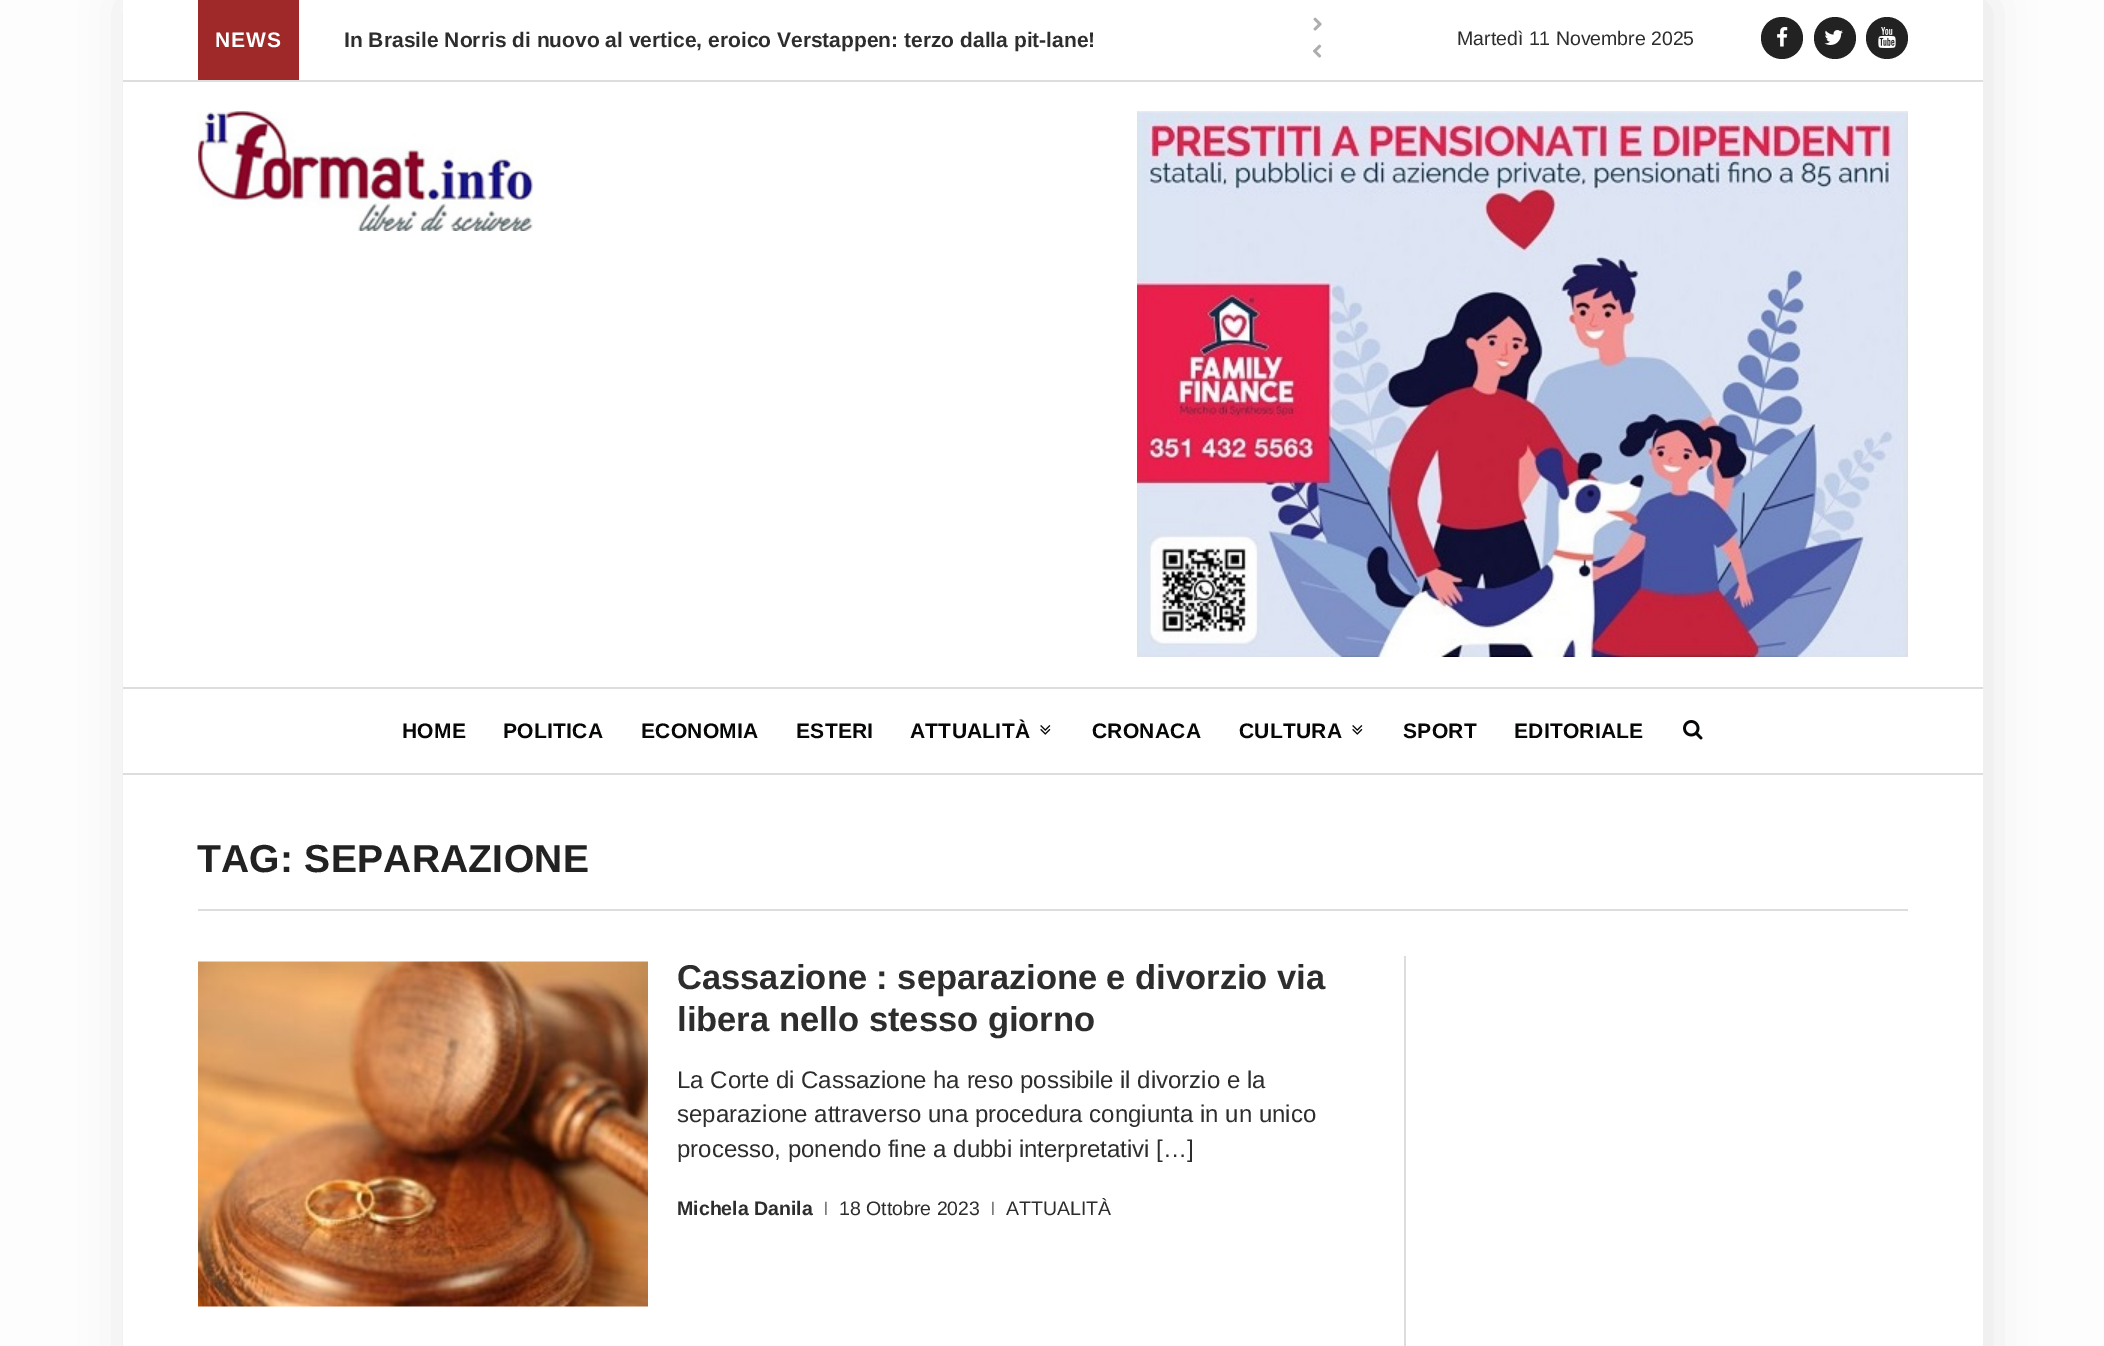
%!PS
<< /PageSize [2104 1346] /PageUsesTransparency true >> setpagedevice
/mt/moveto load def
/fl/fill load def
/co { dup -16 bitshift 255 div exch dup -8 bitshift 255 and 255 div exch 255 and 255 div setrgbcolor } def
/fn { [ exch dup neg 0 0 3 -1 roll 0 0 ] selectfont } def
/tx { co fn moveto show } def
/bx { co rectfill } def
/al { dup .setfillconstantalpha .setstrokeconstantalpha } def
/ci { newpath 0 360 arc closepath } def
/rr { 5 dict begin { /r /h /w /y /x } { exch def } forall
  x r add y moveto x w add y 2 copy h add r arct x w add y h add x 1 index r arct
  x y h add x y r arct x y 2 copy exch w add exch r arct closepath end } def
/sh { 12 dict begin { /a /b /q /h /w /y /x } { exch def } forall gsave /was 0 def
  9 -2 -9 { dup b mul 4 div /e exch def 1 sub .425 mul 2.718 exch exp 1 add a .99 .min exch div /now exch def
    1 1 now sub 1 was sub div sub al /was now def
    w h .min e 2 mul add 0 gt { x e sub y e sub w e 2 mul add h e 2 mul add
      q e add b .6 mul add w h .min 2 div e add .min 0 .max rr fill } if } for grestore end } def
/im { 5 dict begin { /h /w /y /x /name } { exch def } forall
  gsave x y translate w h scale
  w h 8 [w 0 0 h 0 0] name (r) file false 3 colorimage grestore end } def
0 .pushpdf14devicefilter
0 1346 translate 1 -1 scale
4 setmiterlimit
0 0 2104 1346 16#FDFDFD bx
16#000000 co
128 3 1860 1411 0 22.5 .1 sh
123 0 1860 1346 16#FFFFFF bx
123 80 1860 2 16#DDDDDD bx
198 0 101 80 16#9F2929 bx
(media/1.raw) 1313 17 9 14 im
(media/2.raw) 1313 44 9 14 im
16#222222 co
1782 38 21 ci fl
(media/3.raw) 1777 27 11 20 im
1835 38 21 ci fl
(media/4.raw) 1824 30 19 15 im
1887 38 21 ci fl
(media/5.raw) 1878 27 18 21 im
123 687 1860 2 16#DDDDDD bx
(media/6.raw) 198 111 335 120 im
(media/7.raw) 1137 111 771 546 im
123 773 1860 2 16#DDDDDD bx
(media/8.raw) 1040 725 11 10 im
(media/8.raw) 1352 725 11 10 im
(media/9.raw) 1683 720 20 20 im
198 909 1710 2 16#DDDDDD bx
1404 956 2 390 16#DDDDDD bx
(media/10.raw) 198 961 450 346 im
/LiberationSans-Bold 21 fn
16#FFFFFF co
215 47 mt 1 0 (NEWS) ashow
(In Brasile Norris di nuovo al vertice, eroico Verstappen: terzo dalla pit-lane!) 344 47 /LiberationSans-Bold 21 16#2D2D2D tx
(Martedì 11 Novembre 2025) 1457 45 /LiberationSans-Regular 19.5 16#2D2D2D tx
/LiberationSans-Bold 21 fn
16#060807 co
402 738 mt .25 0 (HOME) ashow
503 738 mt .25 0 (POLITICA) ashow
641 738 mt .25 0 (ECONOMIA) ashow
796 738 mt .25 0 (ESTERI) ashow
910 738 mt .25 0 (ATTUALITÀ) ashow
1092 738 mt .25 0 (CRONACA) ashow
1239 738 mt .25 0 (CULTURA) ashow
1403 738 mt .25 0 (SPORT) ashow
1514 738 mt .25 0 (EDITORIALE) ashow
/LiberationSans-Bold 39 fn
16#222222 co
197 872 mt .25 0 (TAG: SEPARAZIONE) ashow
(Cassazione : separazione e divorzio via) 677 989 /LiberationSans-Bold 34.5 16#2D2D2D tx
(libera nello stesso giorno) 677 1031 /LiberationSans-Bold 34.5 16#2D2D2D tx
(La Corte di Cassazione ha reso possibile il divorzio e la) 677 1088 /LiberationSans-Regular 24 16#2D2D2D tx
(separazione attraverso una procedura congiunta in un unico) 677 1122 /LiberationSans-Regular 24 16#2D2D2D tx
(processo, ponendo fine a dubbi interpretativi […]) 677 1157 /LiberationSans-Regular 24 16#2D2D2D tx
(Michela Danila) 677 1215 /LiberationSans-Bold 19.5 16#2D2D2D tx
(|) 824 1212 /LiberationSans-Regular 14 16#4D4D4D tx
(18 Ottobre 2023) 839 1215 /LiberationSans-Regular 19.5 16#2D2D2D tx
(|) 991 1212 /LiberationSans-Regular 14 16#4D4D4D tx
(ATTUALITÀ) 1006 1215 /LiberationSans-Regular 19.5 16#2D2D2D tx
.poppdf14devicefilter showpage
